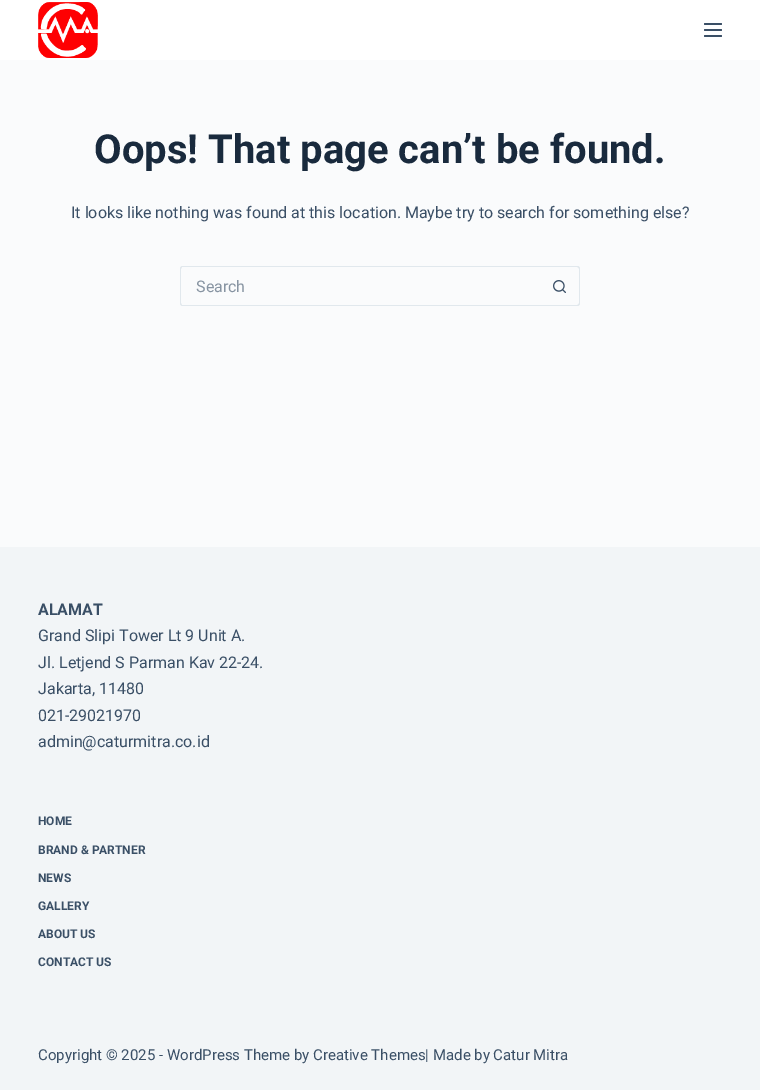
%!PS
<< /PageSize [760 1090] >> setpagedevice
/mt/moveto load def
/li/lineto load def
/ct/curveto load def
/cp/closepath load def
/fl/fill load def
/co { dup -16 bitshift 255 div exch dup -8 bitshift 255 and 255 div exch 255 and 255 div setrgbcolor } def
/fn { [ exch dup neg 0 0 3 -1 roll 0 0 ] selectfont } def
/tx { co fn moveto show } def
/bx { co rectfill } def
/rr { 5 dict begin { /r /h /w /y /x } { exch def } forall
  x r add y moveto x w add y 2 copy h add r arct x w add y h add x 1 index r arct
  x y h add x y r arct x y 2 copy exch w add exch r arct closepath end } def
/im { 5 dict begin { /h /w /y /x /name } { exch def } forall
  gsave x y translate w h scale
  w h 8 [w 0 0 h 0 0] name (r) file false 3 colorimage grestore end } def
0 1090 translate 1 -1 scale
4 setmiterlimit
0 0 760 1090 16#FAFBFC bx
0 0 760 60 16#FFFFFF bx
(media/1.raw) 38 2 60 56 im
16#3A4F66 co
704 23 18 2 1 rr fl
704 29 18 2 1 rr fl
704 35 18 2 1 rr fl
16#E1E8ED co
183 266 mt 540 266 li 540 306 li 183 306 li 181 306 180 305 180 303 ct 180 269 li 180 267 181 266 183 266 ct cp 183 267 mt 540 267 li 540 305 li 182 305 li 180 303 181 298 181 297 ct 181 269 li 182 267 li cp eofill
540 266 mt 577 266 li 579 266 580 267 580 269 ct 580 303 li 580 305 579 306 577 306 ct 540 306 li cp 540 267 mt 577 267 li 578 267 579 268 579 269 ct 579 303 li 579 304 578 305 577 305 ct 540 305 li cp eofill
(media/2.raw) 553 280 13 13 im
0 547 760 543 16#F2F5F7 bx
(Oops! That page can’t be found.) 94 163 /Roboto-Bold 40 16#192A3D tx
(It looks like nothing was found at this location. Maybe try to search for something else?) 71 218 /Roboto-Regular 16 16#3A4F66 tx
(Search) 196 292 /Roboto-Regular 16 16#8794A2 tx
(ALAMAT) 38 615 /Roboto-Bold 16 16#3A4F66 tx
(Grand Slipi Tower Lt 9 Unit A.) 38 641 /Roboto-Regular 16 16#3A4F66 tx
(Jl. Letjend S Parman Kav 22-24.) 38 668 /Roboto-Regular 16 16#3A4F66 tx
(Jakarta, 11480) 38 694 /Roboto-Regular 16 16#3A4F66 tx
(021-29021970) 38 721 /Roboto-Regular 16 16#3A4F66 tx
(admin@caturmitra.co.id) 38 747 /Roboto-Regular 16 16#3A4F66 tx
(HOME) 38 825 /Roboto-Bold 12 16#3A4F66 tx
(BRAND & PARTNER) 38 854 /Roboto-Bold 12 16#3A4F66 tx
(NEWS) 38 882 /Roboto-Bold 12 16#3A4F66 tx
(GALLERY) 38 910 /Roboto-Bold 12 16#3A4F66 tx
(ABOUT US) 38 938 /Roboto-Bold 12 16#3A4F66 tx
(CONTACT US) 38 966 /Roboto-Bold 12 16#3A4F66 tx
(Copyright © 2025 - WordPress Theme by Creative Themes| Made by Catur Mitra) 38 1060 /Roboto-Regular 15 16#3A4F66 tx
showpage
